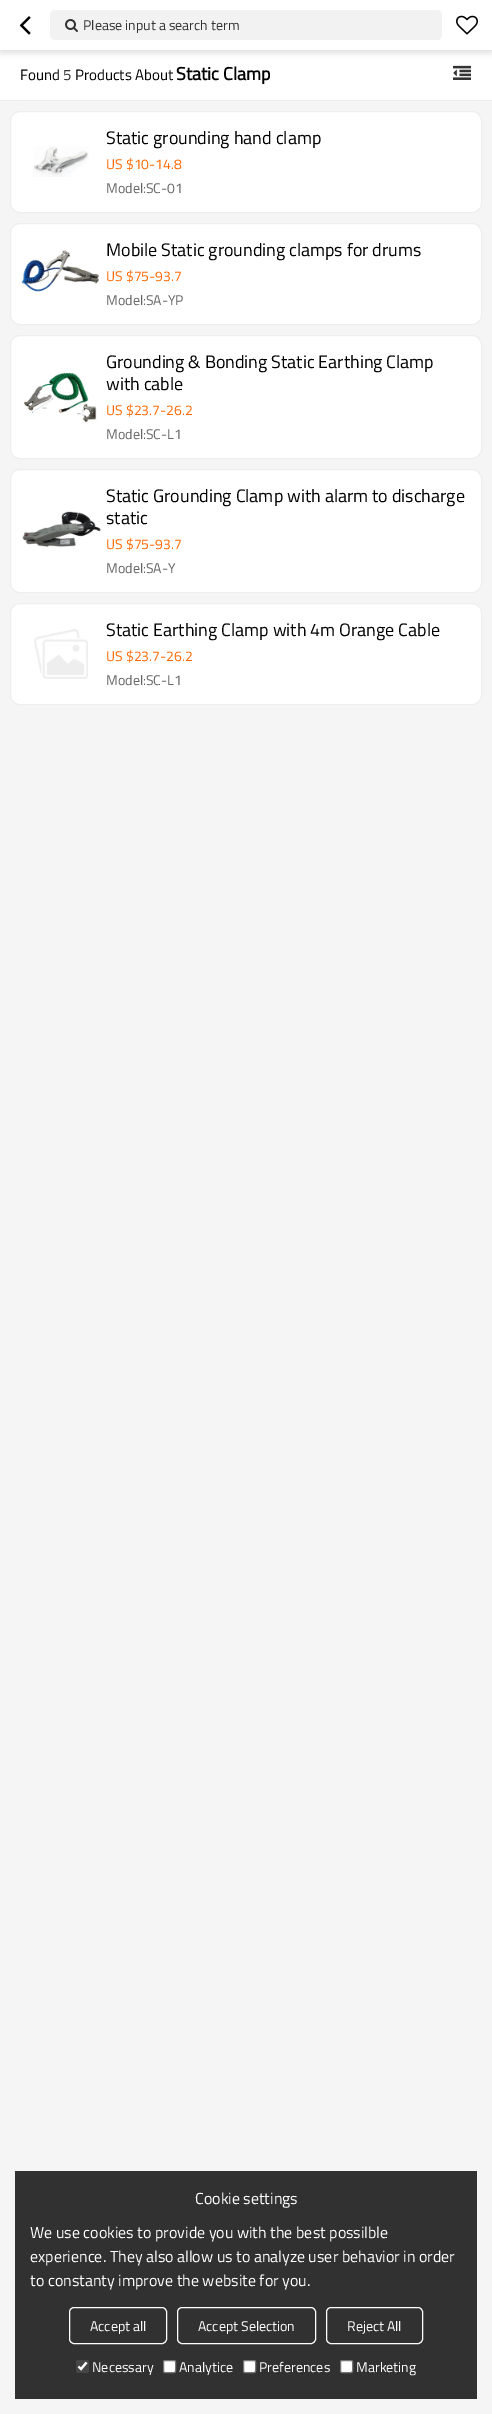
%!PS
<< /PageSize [492 2414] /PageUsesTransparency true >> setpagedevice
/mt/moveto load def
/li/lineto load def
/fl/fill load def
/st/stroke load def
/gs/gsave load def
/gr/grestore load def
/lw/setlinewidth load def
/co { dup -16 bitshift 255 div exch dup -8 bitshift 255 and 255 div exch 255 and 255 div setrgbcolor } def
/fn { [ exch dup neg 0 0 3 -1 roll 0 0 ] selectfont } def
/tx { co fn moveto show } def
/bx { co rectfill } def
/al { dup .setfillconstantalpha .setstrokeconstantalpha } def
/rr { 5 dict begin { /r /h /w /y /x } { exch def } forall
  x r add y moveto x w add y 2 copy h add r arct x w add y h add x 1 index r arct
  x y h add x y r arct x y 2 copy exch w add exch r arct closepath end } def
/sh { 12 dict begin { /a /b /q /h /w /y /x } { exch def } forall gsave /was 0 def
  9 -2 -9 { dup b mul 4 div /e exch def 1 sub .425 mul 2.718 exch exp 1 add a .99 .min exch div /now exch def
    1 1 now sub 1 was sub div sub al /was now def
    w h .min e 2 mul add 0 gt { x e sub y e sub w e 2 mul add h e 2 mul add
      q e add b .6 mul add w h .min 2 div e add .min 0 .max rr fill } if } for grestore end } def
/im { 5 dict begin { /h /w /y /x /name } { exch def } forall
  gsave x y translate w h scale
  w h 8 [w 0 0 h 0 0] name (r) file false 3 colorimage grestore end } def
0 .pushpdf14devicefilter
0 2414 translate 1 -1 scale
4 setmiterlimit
0 0 492 2414 16#F5F5F5 bx
0 51 492 49 16#FFFFFF bx
16#000000 co
0 3 492 51 0 2.5 .1 sh
0 0 492 50 16#FFFFFF bx
0 50 492 1 16#E5E5E5 bx
(media/1.raw) 19 16 12 19 im
16#F2F2F2 co
50 10 392 30 5 rr fl
(media/2.raw) 65 19 13 13 im
(media/3.raw) 456 15 22 20 im
0 100 492 1 16#EEEEEE bx
(media/4.raw) 453 65 18 15 im
16#FFFFFF co
10.5 111.5 471 101 9.5 rr gs fl gr
16#EEEEEE co
st
(media/5.raw) 33 146 56 31 im
16#FFFFFF co
10.5 223.5 471 101 9.5 rr gs fl gr
16#EEEEEE co
st
(media/6.raw) 21 250 78 42 im
16#FFFFFF co
10.5 335.5 471 123 9.5 rr gs fl gr
16#EEEEEE co
st
(media/7.raw) 24 372 73 50 im
16#FFFFFF co
10.5 469.5 471 123 9.5 rr gs fl gr
16#EEEEEE co
st
(media/8.raw) 22 511 79 36 im
16#FFFFFF co
10.5 603.5 471 101 9.5 rr gs fl gr
16#EEEEEE co
st
(media/9.raw) 34 629 54 50 im
15 2171 462 228 16#313131 bx
16#FFFFFF co
69.5 2307.5 97 36 4.5 rr st
177.5 2307.5 138 36 4.5 rr st
326.5 2307.5 96 36 4.5 rr st
16#464646 co
76 2360 13 13 2 rr fl
16#FFFFFF co
2.1 lw
78.5 2366.5 mt 81 2369 li 86.5 2362.5 li st
163.5 2360.5 12 12 1.5 rr gs fl gr
16#767676 co
1 lw
st
16#FFFFFF co
243.5 2360.5 12 12 1.5 rr gs fl gr
16#767676 co
st
16#FFFFFF co
340.5 2360.5 12 12 1.5 rr gs fl gr
16#767676 co
st
(Please input a search term) 83 30 /TitilliumWeb-Regular 14 16#333333 tx
(Found) 20 80 /TitilliumWeb-Regular 15 16#000000 tx
(5) 63 80 /TitilliumWeb-Regular 15 16#333333 tx
(Products About) 75 80 /TitilliumWeb-Regular 15 16#000000 tx
(Static Clamp) 176 80 /TitilliumWeb-Bold 18 16#000000 tx
(Static grounding hand clamp) 106 144 /TitilliumWeb-Regular 18 16#000000 tx
(US $10-14.8) 106 169 /TitilliumWeb-Regular 14 16#FF6700 tx
(Model:SC-01) 106 193 /TitilliumWeb-Regular 14 16#666666 tx
(Mobile Static grounding clamps for drums) 106 256 /TitilliumWeb-Regular 18 16#000000 tx
(US $75-93.7) 106 281 /TitilliumWeb-Regular 14 16#FF6700 tx
(Model:SA-YP) 106 305 /TitilliumWeb-Regular 14 16#666666 tx
(Grounding & Bonding Static Earthing Clamp) 106 368 /TitilliumWeb-Regular 18 16#000000 tx
(with cable) 106 390 /TitilliumWeb-Regular 18 16#000000 tx
(US $23.7-26.2) 106 415 /TitilliumWeb-Regular 14 16#FF6700 tx
(Model:SC-L1) 106 439 /TitilliumWeb-Regular 14 16#666666 tx
(Static Grounding Clamp with alarm to discharge) 106 502 /TitilliumWeb-Regular 18 16#000000 tx
(static) 106 524 /TitilliumWeb-Regular 18 16#000000 tx
(US $75-93.7) 106 549 /TitilliumWeb-Regular 14 16#FF6700 tx
(Model:SA-Y) 106 573 /TitilliumWeb-Regular 14 16#666666 tx
(Static Earthing Clamp with 4m Orange Cable) 106 636 /TitilliumWeb-Regular 18 16#000000 tx
(US $23.7-26.2) 106 661 /TitilliumWeb-Regular 14 16#FF6700 tx
(Model:SC-L1) 106 685 /TitilliumWeb-Regular 14 16#666666 tx
(Cookie settings) 195 2204 /TitilliumWeb-Regular 16 16#FFFFFF tx
(We use cookies to provide you with the best possilble) 30 2238 /TitilliumWeb-Regular 16 16#FFFFFF tx
(experience. They also allow us to analyze user behavior in order) 30 2262 /TitilliumWeb-Regular 16 16#FFFFFF tx
(to constanty improve the website for you.) 30 2286 /TitilliumWeb-Regular 16 16#FFFFFF tx
(Accept all) 90 2331 /TitilliumWeb-Regular 14 16#FFFFFF tx
(Accept Selection) 198 2331 /TitilliumWeb-Regular 14 16#FFFFFF tx
(Reject All) 347 2331 /TitilliumWeb-Regular 14 16#FFFFFF tx
(Necessary) 92 2372 /TitilliumWeb-Regular 14 16#FFFFFF tx
(Analytice) 179 2372 /TitilliumWeb-Regular 14 16#FFFFFF tx
(Preferences) 259 2372 /TitilliumWeb-Regular 14 16#FFFFFF tx
(Marketing) 356 2372 /TitilliumWeb-Regular 14 16#FFFFFF tx
.poppdf14devicefilter showpage
